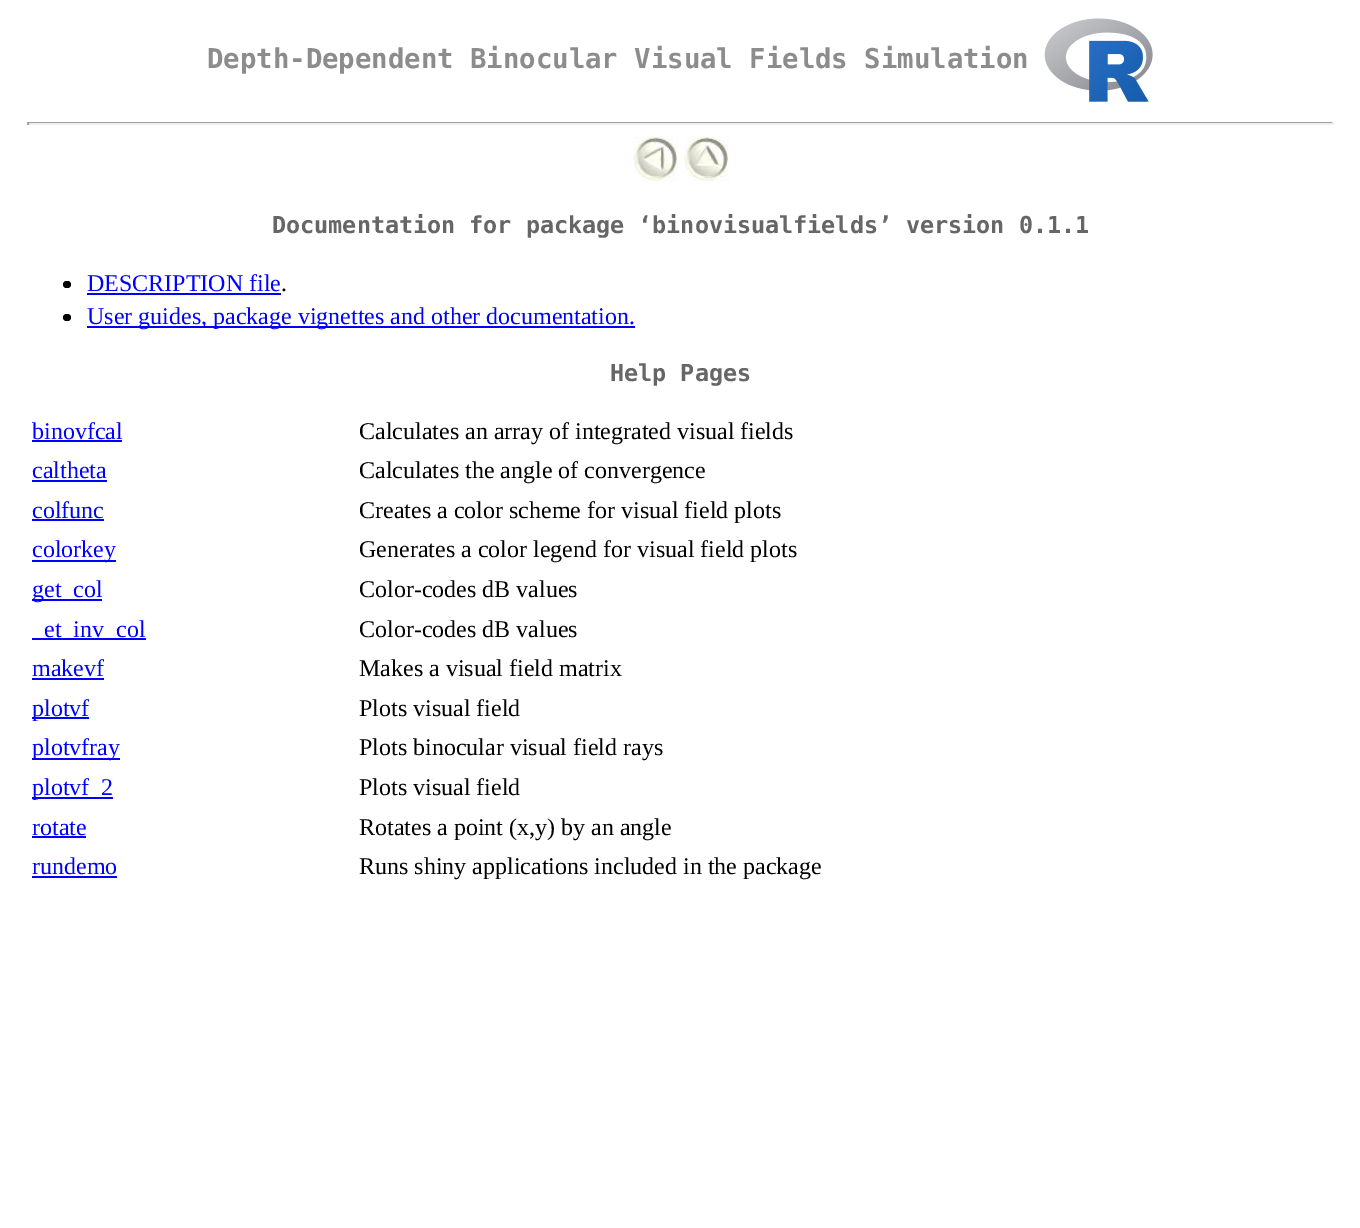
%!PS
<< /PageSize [1360 1228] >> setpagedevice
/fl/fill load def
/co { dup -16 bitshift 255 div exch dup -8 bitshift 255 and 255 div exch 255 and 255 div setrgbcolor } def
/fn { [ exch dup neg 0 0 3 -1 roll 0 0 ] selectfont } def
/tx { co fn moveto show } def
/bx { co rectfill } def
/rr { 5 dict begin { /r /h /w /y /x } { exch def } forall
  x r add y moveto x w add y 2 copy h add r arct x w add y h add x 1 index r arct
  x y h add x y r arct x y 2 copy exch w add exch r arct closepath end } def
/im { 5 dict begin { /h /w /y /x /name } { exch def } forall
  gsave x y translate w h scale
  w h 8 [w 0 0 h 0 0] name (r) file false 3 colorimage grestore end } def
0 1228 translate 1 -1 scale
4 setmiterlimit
0 0 1360 1228 16#FFFFFF bx
(media/1.raw) 1044 18 109 84 im
27 122 1307 1 16#9F9F9F bx
1332 122 2 3 16#EEEEEE bx
27 123 1307 2 16#EEEEEE bx
27 122 2 3 16#9F9F9F bx
(media/2.raw) 633 136 45 46 im
(media/3.raw) 684 136 45 46 im
16#000000 co
63 281 8 7 3.5 rr fl
87 293 194 2 16#0000FF bx
16#000000 co
63 314 8 7 3.5 rr fl
87 326 548 2 16#0000FF bx
32 440 90 2 16#0000FF bx
32 480 75 2 16#0000FF bx
32 519 72 2 16#0000FF bx
32 560 84 2 16#0000FF bx
32 599 70 2 16#0000FF bx
32 638 114 2 16#0000FF bx
32 678 72 2 16#0000FF bx
32 717 57 2 16#0000FF bx
32 758 88 2 16#0000FF bx
32 797 81 2 16#0000FF bx
32 836 54 2 16#0000FF bx
32 876 85 2 16#0000FF bx
(Depth-Dependent Binocular Visual Fields Simulation) 207 68 /DejaVuSansMono-Bold 27.3 16#8C8C8C tx
(Documentation for package ‘binovisualfields’ version 0.1.1) 272 233 /DejaVuSansMono-Bold 23.4 16#666666 tx
(DESCRIPTION file) 87 291 /LiberationSerif-Regular 24 16#0000FF tx
(.) 281 291 /LiberationSerif-Regular 24 16#000000 tx
(User guides, package vignettes and other documentation.) 87 324 /LiberationSerif-Regular 24 16#0000FF tx
(Help Pages) 610 381 /DejaVuSansMono-Bold 23.4 16#666666 tx
(binovfcal) 32 439 /LiberationSerif-Regular 24 16#0000FF tx
(Calculates an array of integrated visual fields) 359 439 /LiberationSerif-Regular 24 16#000000 tx
(caltheta) 32 478 /LiberationSerif-Regular 24 16#0000FF tx
(Calculates the angle of convergence) 359 478 /LiberationSerif-Regular 24 16#000000 tx
(colfunc) 32 518 /LiberationSerif-Regular 24 16#0000FF tx
(Creates a color scheme for visual field plots) 359 518 /LiberationSerif-Regular 24 16#000000 tx
(colorkey) 32 557 /LiberationSerif-Regular 24 16#0000FF tx
(Generates a color legend for visual field plots) 359 557 /LiberationSerif-Regular 24 16#000000 tx
(get_col) 32 597 /LiberationSerif-Regular 24 16#0000FF tx
(Color-codes dB values) 359 597 /LiberationSerif-Regular 24 16#000000 tx
(et_inv_col) 44 637 /LiberationSerif-Regular 24 16#0000FF tx
(Color-codes dB values) 359 637 /LiberationSerif-Regular 24 16#000000 tx
(makevf) 32 676 /LiberationSerif-Regular 24 16#0000FF tx
(Makes a visual field matrix) 359 676 /LiberationSerif-Regular 24 16#000000 tx
(plotvf) 32 716 /LiberationSerif-Regular 24 16#0000FF tx
(Plots visual field) 359 716 /LiberationSerif-Regular 24 16#000000 tx
(plotvfray) 32 755 /LiberationSerif-Regular 24 16#0000FF tx
(Plots binocular visual field rays) 359 755 /LiberationSerif-Regular 24 16#000000 tx
(plotvf_2) 32 795 /LiberationSerif-Regular 24 16#0000FF tx
(Plots visual field) 359 795 /LiberationSerif-Regular 24 16#000000 tx
(rotate) 32 835 /LiberationSerif-Regular 24 16#0000FF tx
(Rotates a point \(x,y\) by an angle) 359 835 /LiberationSerif-Regular 24 16#000000 tx
(rundemo) 32 874 /LiberationSerif-Regular 24 16#0000FF tx
(Runs shiny applications included in the package) 359 874 /LiberationSerif-Regular 24 16#000000 tx
showpage
